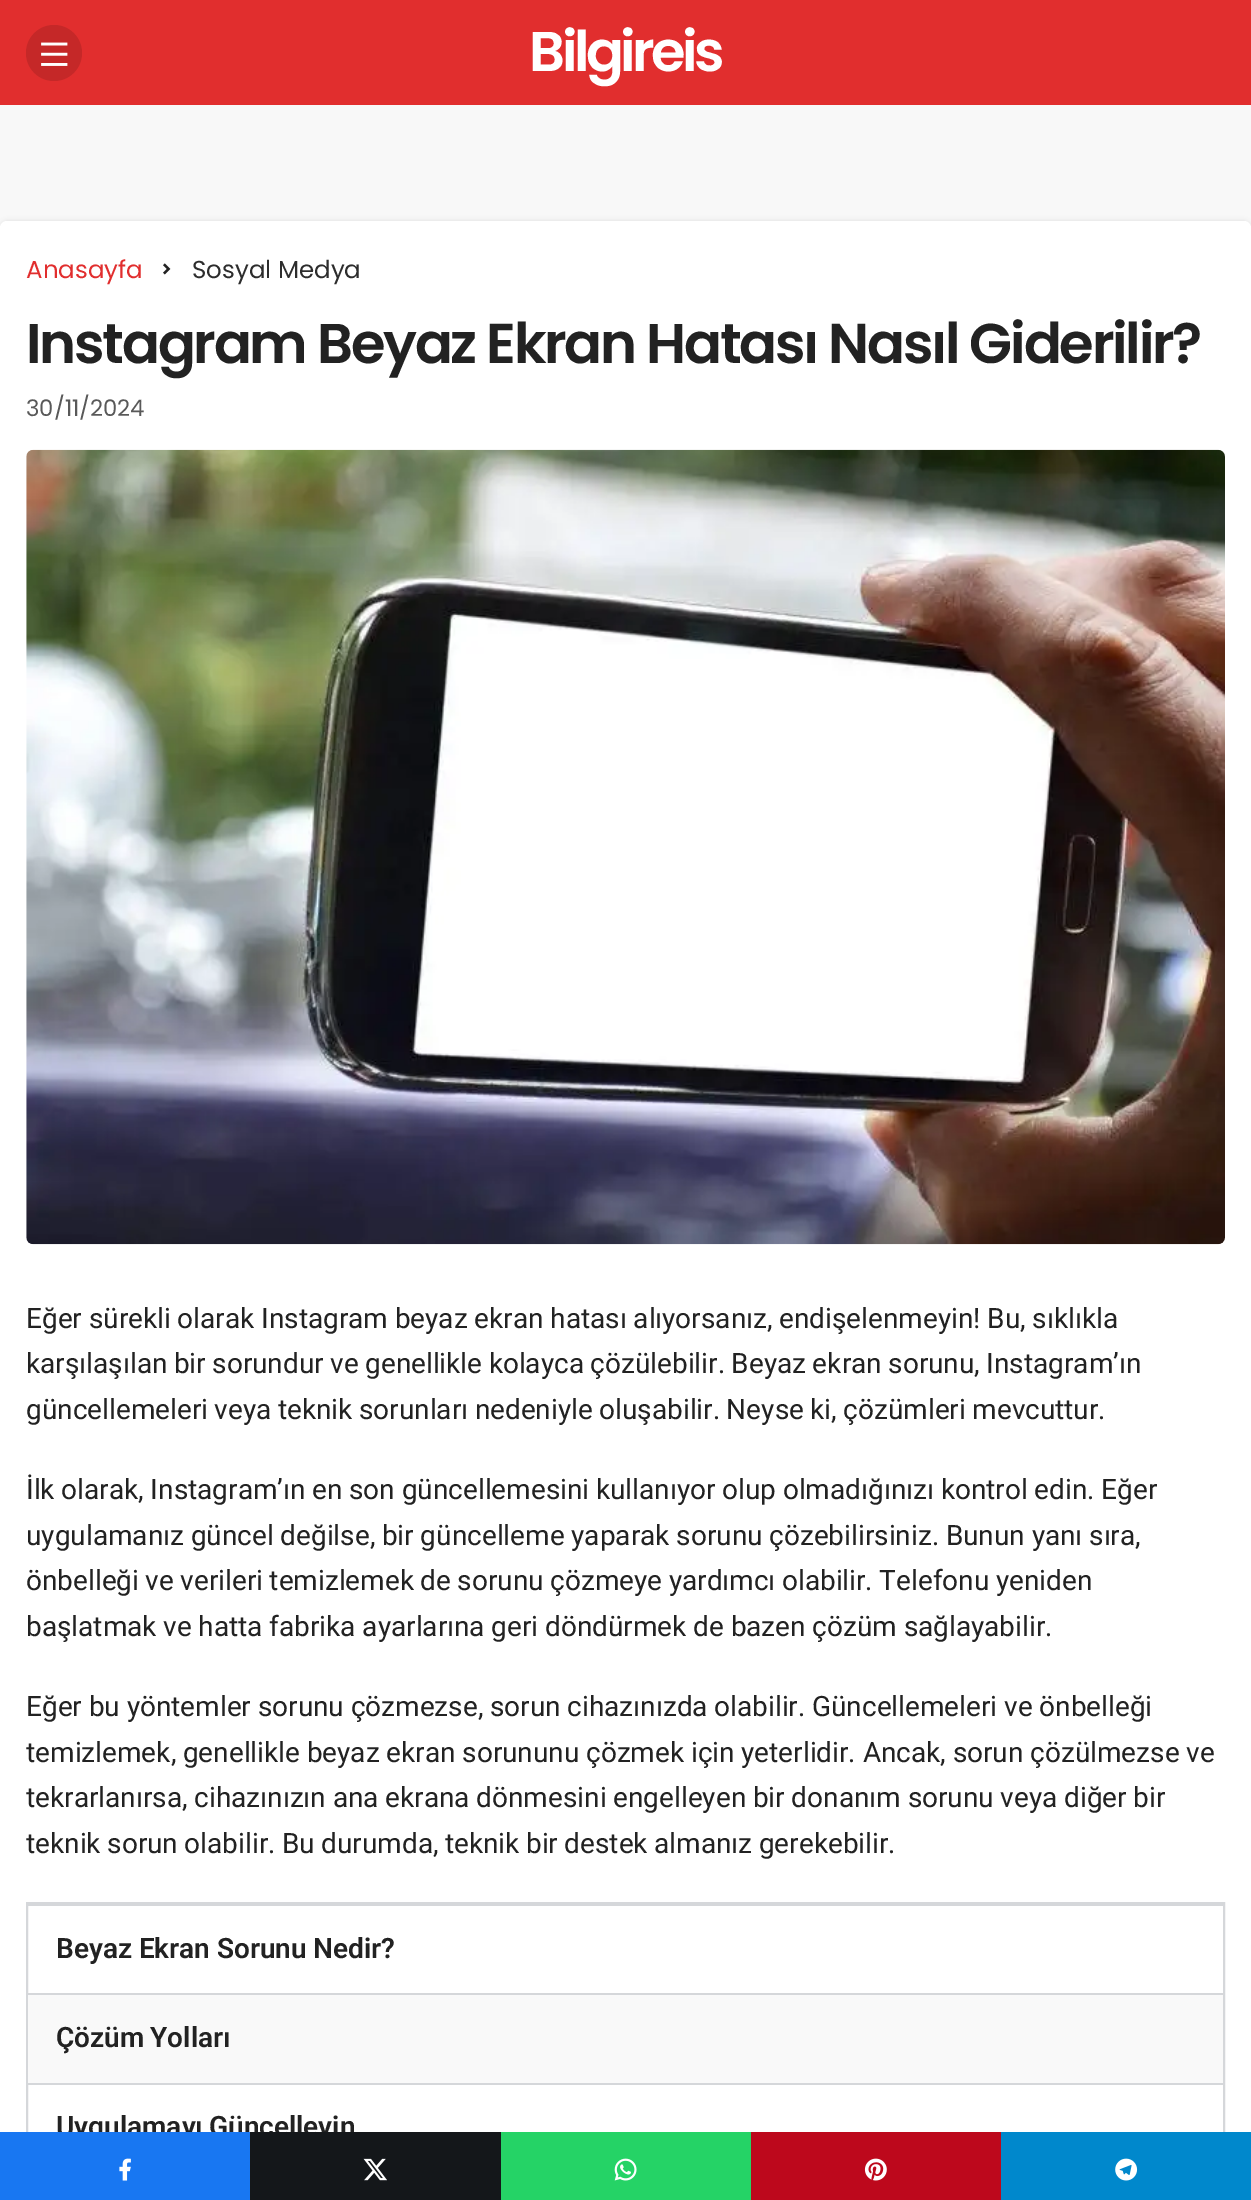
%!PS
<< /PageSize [1251 2200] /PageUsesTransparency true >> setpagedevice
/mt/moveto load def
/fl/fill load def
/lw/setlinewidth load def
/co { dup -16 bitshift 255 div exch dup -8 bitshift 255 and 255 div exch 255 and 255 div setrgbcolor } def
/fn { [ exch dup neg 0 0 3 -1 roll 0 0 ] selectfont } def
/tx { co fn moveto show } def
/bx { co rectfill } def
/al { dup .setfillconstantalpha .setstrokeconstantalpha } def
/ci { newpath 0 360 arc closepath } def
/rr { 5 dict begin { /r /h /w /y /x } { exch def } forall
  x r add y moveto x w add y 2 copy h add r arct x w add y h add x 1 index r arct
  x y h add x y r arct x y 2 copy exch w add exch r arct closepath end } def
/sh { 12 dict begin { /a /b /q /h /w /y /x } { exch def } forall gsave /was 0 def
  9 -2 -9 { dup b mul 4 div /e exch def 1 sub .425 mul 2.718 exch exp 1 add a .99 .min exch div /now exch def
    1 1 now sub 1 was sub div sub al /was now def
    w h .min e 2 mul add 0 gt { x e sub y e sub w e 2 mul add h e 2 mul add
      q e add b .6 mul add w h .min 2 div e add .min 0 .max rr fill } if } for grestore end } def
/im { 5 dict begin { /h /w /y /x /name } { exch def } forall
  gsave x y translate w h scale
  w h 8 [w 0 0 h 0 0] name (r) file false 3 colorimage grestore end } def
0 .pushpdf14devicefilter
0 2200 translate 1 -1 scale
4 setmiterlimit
0 0 1251 2200 16#F8F8F8 bx
0 0 1251 105 16#E12E2E bx
16#C52828 co
54 53 28 ci fl
(media/1.raw) 41 42 27 24 im
16#000000 co
0 221 1251 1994 7 2.5 .1 sh
16#FFFFFF co
0 221 1251 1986 7 rr fl
(media/2.raw) 163 263 8 12 im
(media/3.raw) 26 449 1199 796 im
16#D5D7DA co
2 lw
27 1903 1197 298 rectstroke
28 1904 1195 2 16#D5D7DA bx
28 1995 1195 88 16#F9F9F9 bx
28 1993 1195 2 16#D5D7DA bx
28 2083 1195 2 16#D5D7DA bx
501 2132 250 68 16#25D366 bx
(media/6.raw) 614 2158 23 23 im
751 2132 250 68 16#BD081C bx
(media/7.raw) 864 2158 23 23 im
1001 2132 250 68 16#0088CC bx
(media/8.raw) 1115 2158 23 23 im
/Poppins-SemiBold 56 fn
16#FFFFFF co
529 71 mt -3.5 0 (Bilgireis) ashow
(Anasayfa) 26 278 /Poppins-Regular 24.5 16#E12E2E tx
(Sosyal Medya) 192 278 /Poppins-Regular 24.5 16#2D2D2D tx
/Poppins-SemiBold 56 fn
16#222222 co
26 363 mt -2.25 0 (Instagram Beyaz Ekran Hatası Nasıl Giderilir?) ashow
(30/11/2024) 26 416 /Poppins-Regular 22.75 16#595959 tx
/Roboto-Regular 28 fn
16#222222 co
26 1328 mt -.25 0 32 (Eğer sürekli olarak Instagram beyaz ekran hatası alıyorsanız, endişelenmeyin! Bu, sıklıkla) widthshow
26 1373 mt -.5 0 32 (karşılaşılan bir sorundur ve genellikle kolayca çözülebilir. Beyaz ekran sorunu, Instagram’ın) widthshow
26 1419 mt -.5 0 32 (güncellemeleri veya teknik sorunları nedeniyle oluşabilir. Neyse ki, çözümleri mevcuttur.) widthshow
26 1499 mt -.25 0 32 (İlk olarak, Instagram’ın en son güncellemesini kullanıyor olup olmadığınızı kontrol edin. Eğer) widthshow
26 1545 mt -.25 0 32 (uygulamanız güncel değilse, bir güncelleme yaparak sorunu çözebilirsiniz. Bunun yanı sıra,) widthshow
26 1590 mt -.5 0 32 (önbelleği ve verileri temizlemek de sorunu çözmeye yardımcı olabilir. Telefonu yeniden) widthshow
26 1636 mt -.25 0 32 (başlatmak ve hatta fabrika ayarlarına geri döndürmek de bazen çözüm sağlayabilir.) widthshow
26 1716 mt -.25 0 32 (Eğer bu yöntemler sorunu çözmezse, sorun cihazınızda olabilir. Güncellemeleri ve önbelleği) widthshow
26 1762 mt -.25 0 32 (temizlemek, genellikle beyaz ekran sorununu çözmek için yeterlidir. Ancak, sorun çözülmezse ve) widthshow
26 1807 mt -.25 0 32 (tekrarlanırsa, cihazınızın ana ekrana dönmesini engelleyen bir donanım sorunu veya diğer bir) widthshow
26 1853 mt -.5 0 32 (teknik sorun olabilir. Bu durumda, teknik bir destek almanız gerekebilir.) widthshow
/Roboto-SemiBold 28 fn
56 1958 mt -.25 0 32 (Beyaz Ekran Sorunu Nedir?) widthshow
56 2047 mt -1 0 32 (Çözüm Yolları) widthshow
56 2136 mt -1 0 32 (Uygulamayı Güncelleyin) widthshow
0 2132 250 68 16#1877F2 bx
(media/4.raw) 119 2158 12 23 im
250 2132 251 68 16#14171A bx
(media/5.raw) 363 2158 24 23 im
.poppdf14devicefilter showpage
